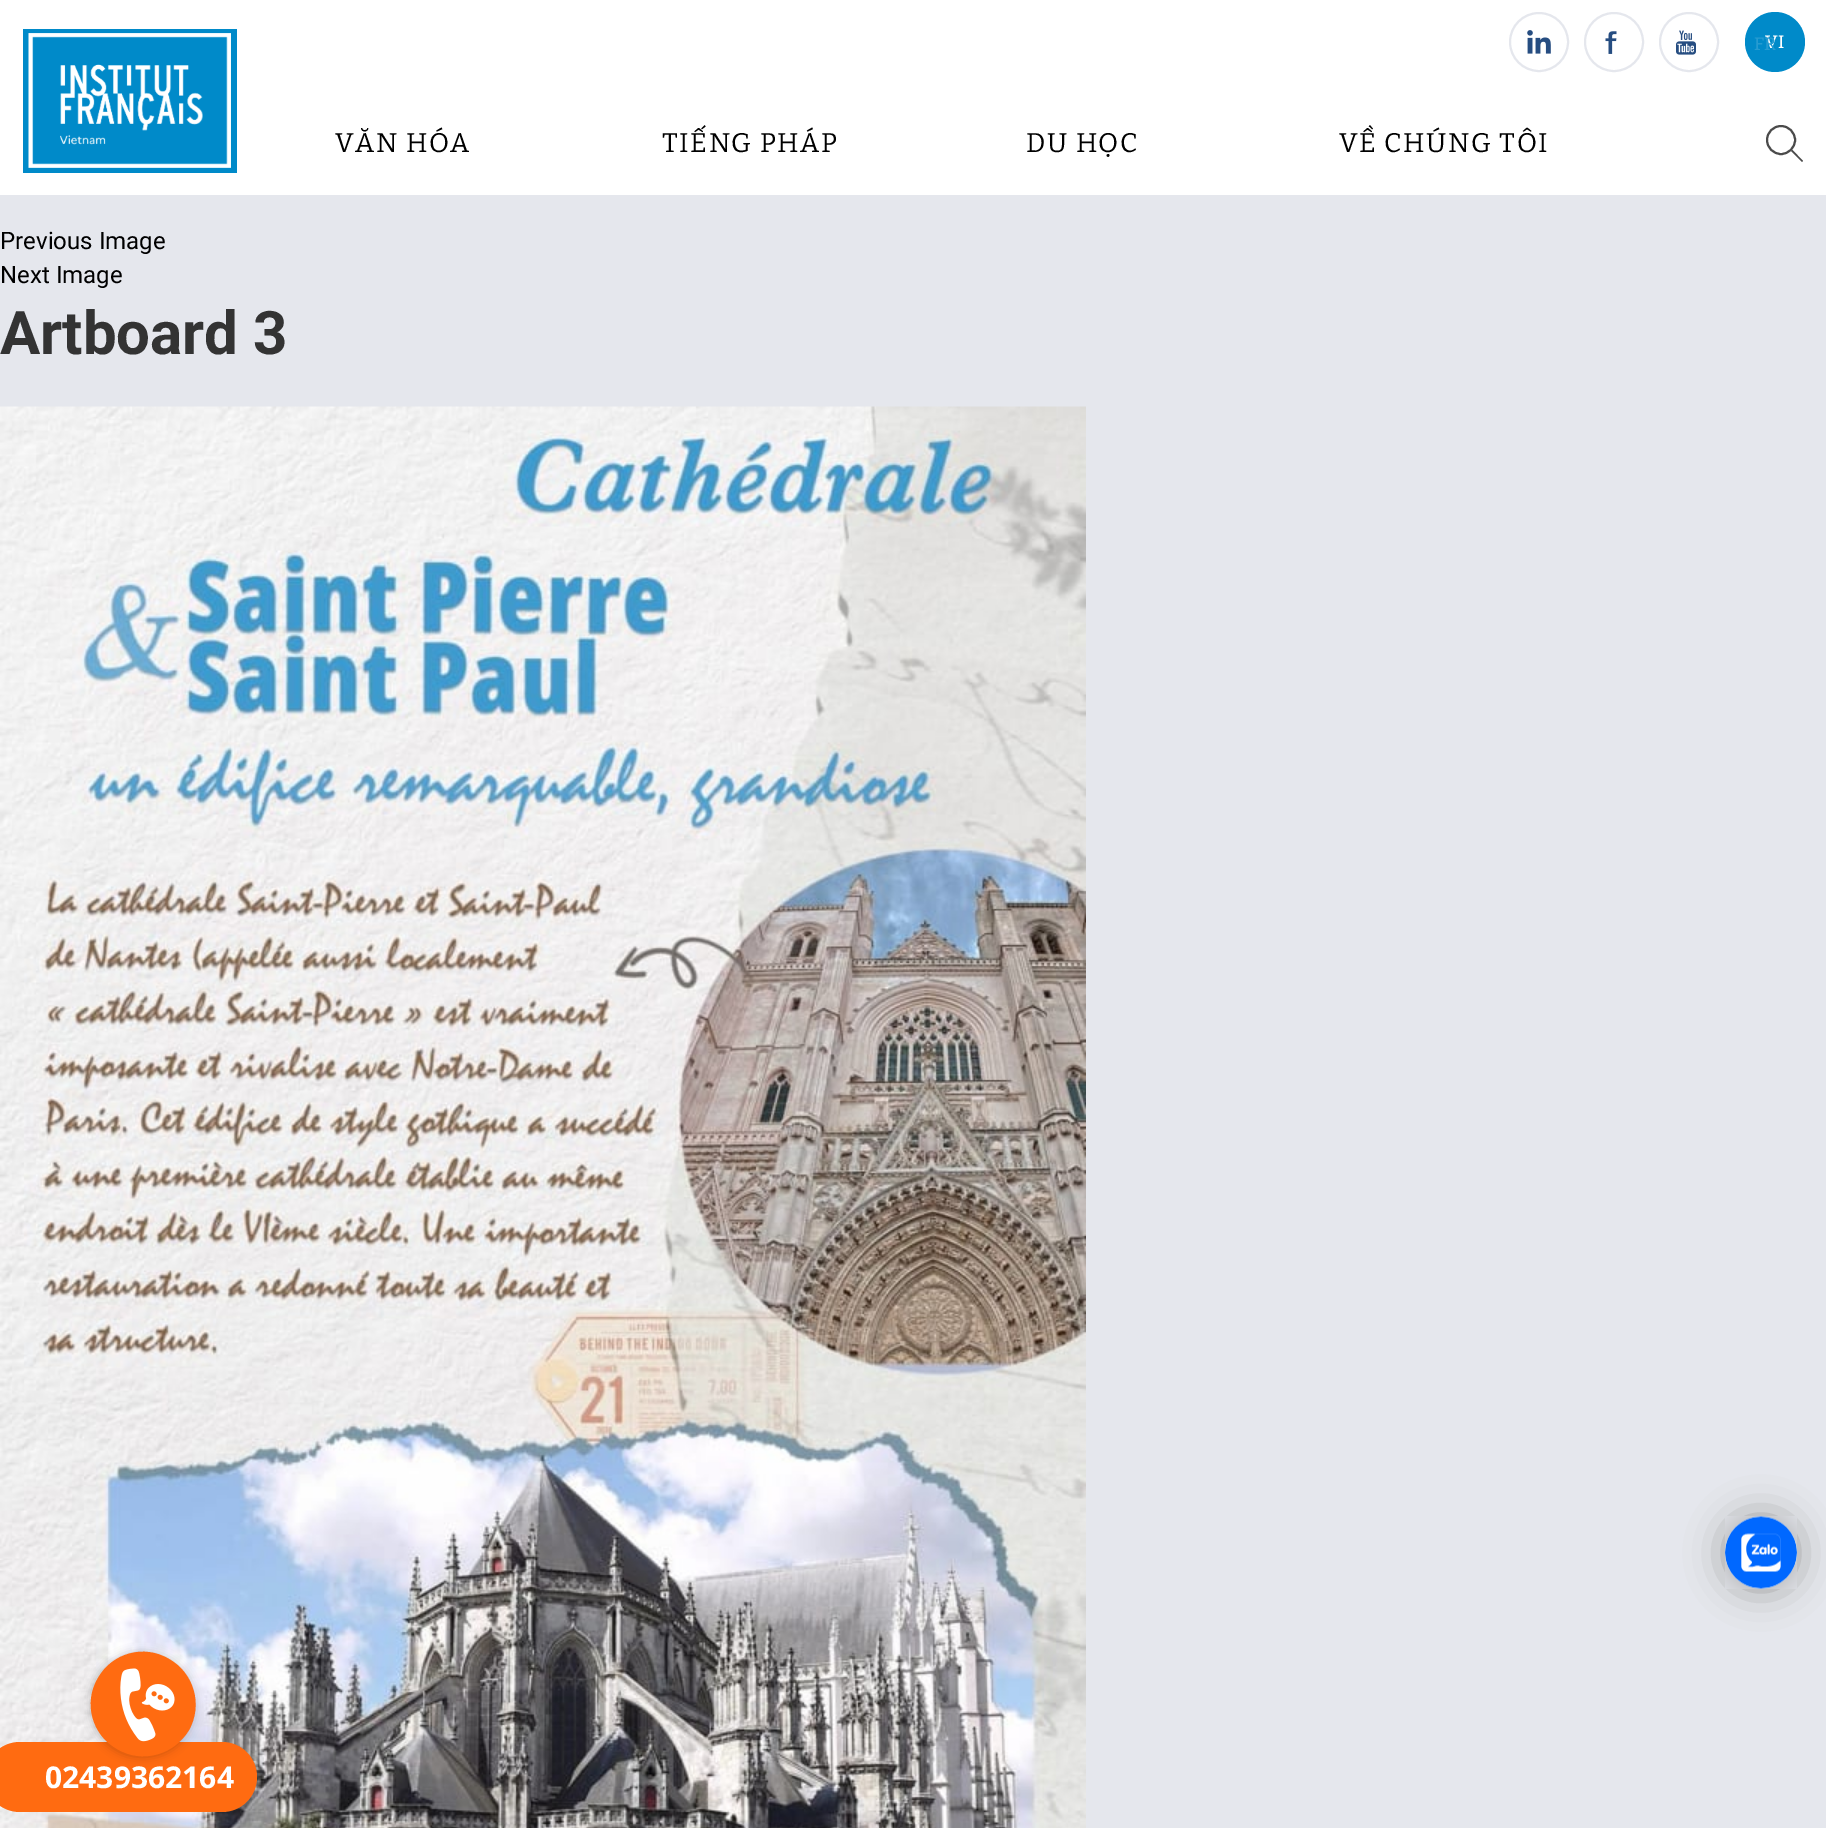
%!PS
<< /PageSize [1826 1828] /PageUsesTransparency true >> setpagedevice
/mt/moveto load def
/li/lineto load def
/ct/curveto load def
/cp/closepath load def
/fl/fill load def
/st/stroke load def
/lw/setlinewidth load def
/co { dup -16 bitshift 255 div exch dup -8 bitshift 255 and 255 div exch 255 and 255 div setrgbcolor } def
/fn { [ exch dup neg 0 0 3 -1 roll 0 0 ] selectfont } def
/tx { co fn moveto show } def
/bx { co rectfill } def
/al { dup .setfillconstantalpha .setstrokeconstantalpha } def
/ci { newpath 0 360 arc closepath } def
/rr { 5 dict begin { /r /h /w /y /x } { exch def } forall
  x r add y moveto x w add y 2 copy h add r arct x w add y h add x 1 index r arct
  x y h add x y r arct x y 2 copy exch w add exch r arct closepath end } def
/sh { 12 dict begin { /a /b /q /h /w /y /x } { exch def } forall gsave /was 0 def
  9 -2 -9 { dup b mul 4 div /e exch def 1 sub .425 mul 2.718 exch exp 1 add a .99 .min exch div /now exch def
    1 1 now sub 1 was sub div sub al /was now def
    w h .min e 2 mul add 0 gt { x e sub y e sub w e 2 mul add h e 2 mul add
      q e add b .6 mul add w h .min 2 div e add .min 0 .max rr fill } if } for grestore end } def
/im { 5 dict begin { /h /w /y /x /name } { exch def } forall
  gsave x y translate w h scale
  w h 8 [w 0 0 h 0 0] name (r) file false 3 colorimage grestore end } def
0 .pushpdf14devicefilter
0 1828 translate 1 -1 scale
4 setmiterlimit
0 0 1826 1828 16#E5E7ED bx
0 0 1826 195 16#FFFFFF bx
23 29 214 144 16#008AC9 bx
(media/1.raw) 28 33 203 135 im
16#E5E7ED co
2 lw
1539 42 29 ci st
(media/2.raw) 1527 30 24 24 im
1614 42 29 ci st
(media/3.raw) 1605 31 12 23 im
1689 42 29 ci st
(media/4.raw) 1676 30 20 25 im
16#008AC9 co
1775 42 30 ci fl
16#4B4B4B co
1781 140 14 ci st
1791 151 mt 1792.5 150 li 1803 161 li 1802 162 li cp fl
(media/5.raw) 0 406 1086 1422 im
16#999999 co
1725 1517 72 72 36 19 1 sh
(media/6.raw) 1725 1516 72 73 im
16#FF6B11 co
-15 1742 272 70 35 rr fl
16#000000 co
90 1652 105 105 52.5 4.5 .2 sh
16#FF6B11 co
169 1659 mt 194 1673 203 1705 189 1730 ct 174 1755 142 1764 117 1749 ct 92 1735 83 1703 98 1678 ct 112 1653 144 1644 169 1659 ct cp fl
(media/7.raw) 120 1668 55 74 im
(VI) 1765 48 /Bitter-Medium 18 16#FFFFFF tx
(FR) 1754 50 /Bitter-Medium 18 16#259BD1 tx
/Bitter-Regular 27 fn
16#000000 co
335 152 mt 1.5 0 (VĂN HÓA) ashow
662 152 mt 1.5 0 (TIẾNG PHÁP) ashow
1026 152 mt 1.5 0 (DU HỌC) ashow
1339 152 mt 1.5 0 (VỀ CHÚNG TÔI) ashow
(Previous Image) 0 249 /Roboto-Regular 24 16#000000 tx
(Next Image) 0 283 /Roboto-Regular 24 16#000000 tx
(Artboard 3) 0 354 /Roboto-Bold 60 16#333333 tx
(02439362164) 45 1788 /OpenSans-Bold 30 16#FFFFFF tx
.poppdf14devicefilter showpage
